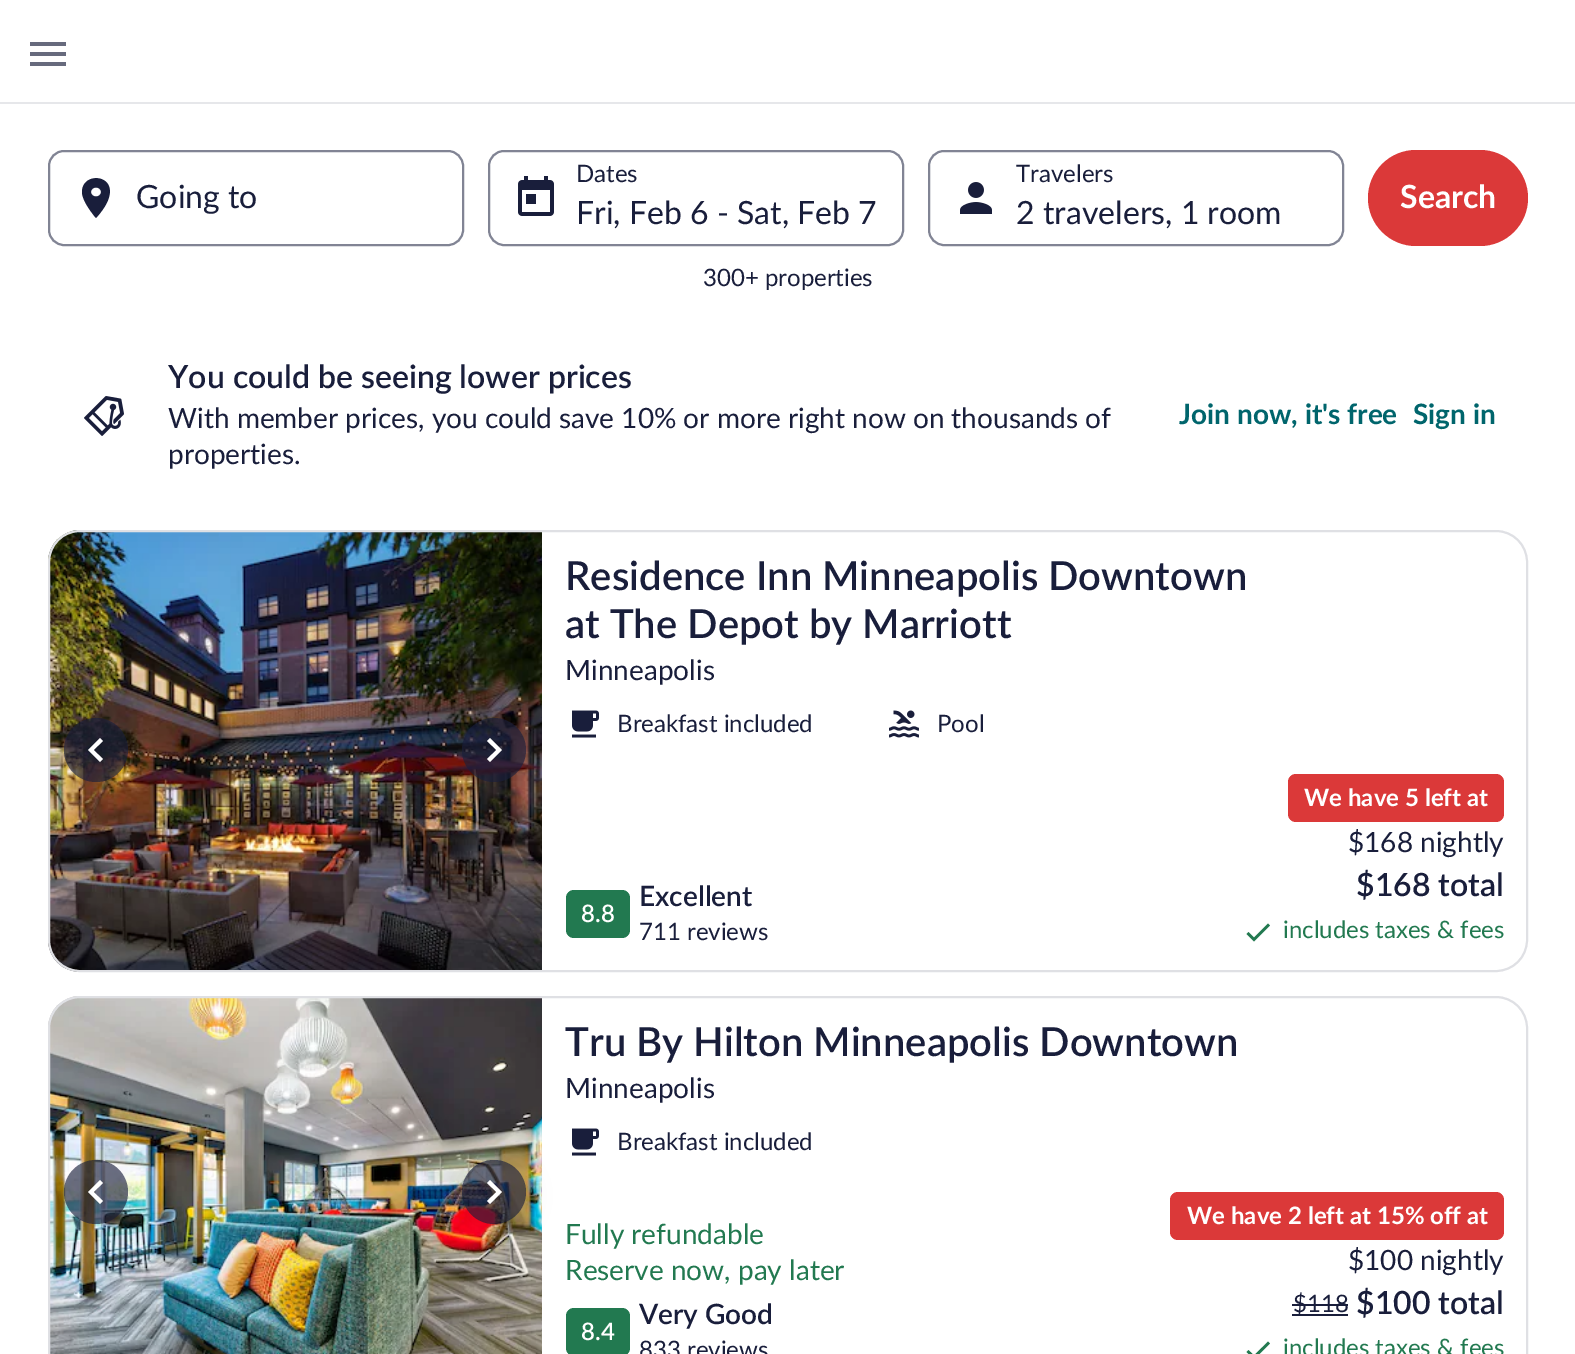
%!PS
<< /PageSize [1575 1354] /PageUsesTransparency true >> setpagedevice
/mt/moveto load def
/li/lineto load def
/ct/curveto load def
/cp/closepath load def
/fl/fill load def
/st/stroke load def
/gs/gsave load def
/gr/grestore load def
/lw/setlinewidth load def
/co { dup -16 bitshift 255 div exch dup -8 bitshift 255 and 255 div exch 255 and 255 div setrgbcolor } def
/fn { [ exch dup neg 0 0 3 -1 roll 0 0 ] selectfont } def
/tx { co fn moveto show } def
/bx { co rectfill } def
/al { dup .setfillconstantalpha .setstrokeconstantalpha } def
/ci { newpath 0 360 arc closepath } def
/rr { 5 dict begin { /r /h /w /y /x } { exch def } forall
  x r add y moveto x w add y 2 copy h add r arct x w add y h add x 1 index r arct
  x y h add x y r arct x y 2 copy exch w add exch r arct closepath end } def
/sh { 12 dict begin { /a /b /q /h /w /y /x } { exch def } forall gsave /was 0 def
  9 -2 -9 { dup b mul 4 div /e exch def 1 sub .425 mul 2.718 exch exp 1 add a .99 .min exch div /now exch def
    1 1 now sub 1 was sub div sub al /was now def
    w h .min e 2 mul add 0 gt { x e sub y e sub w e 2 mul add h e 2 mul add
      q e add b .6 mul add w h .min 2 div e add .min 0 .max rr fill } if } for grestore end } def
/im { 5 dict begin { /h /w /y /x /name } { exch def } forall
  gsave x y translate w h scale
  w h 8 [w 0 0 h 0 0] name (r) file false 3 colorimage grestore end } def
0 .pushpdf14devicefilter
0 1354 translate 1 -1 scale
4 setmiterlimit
0 0 1575 1354 16#FFFFFF bx
0 102 1575 2 16#E6E7EA bx
16#676A7D co
30 46 mt 30 42 li 66 42 li 66 46 li cp 30 56 mt 66 56 li 66 52 li 30 52 li cp 30 66 mt 66 66 li 66 62 li 30 62 li cp eofill
16#818494 co
2 lw
49 151 414 94 15 rr st
16#191E3B co
82 192 mt 82 167 134 176 96 218 ct 96 218 82 202 82 192 ct cp 91 192 mt 91 198 101 198 101 192 ct 101 186 91 186 91 192 ct cp eofill
16#818494 co
489 151 414 94 15 rr st
(media/1.raw) 518 176 36 40 im
929 151 414 94 15 rr st
(media/2.raw) 960 182 32 32 im
16#DB3939 co
1368 150 160 96 48 rr fl
(media/3.raw) 84 396 40 40 im
(media/4.raw) 48 530 494 442 im
0.64 al
16#191E3B co
96 750 32 ci fl
1 al
16#FFFFFF co
103 741 mt 100 738 li 88 750 li 100 762 li 103 759 li 93.5 750 li cp fl
0.64 al
16#191E3B co
494 750 32 ci fl
1 al
16#FFFFFF co
490 738 mt 487 741 li 496.5 750 li 487 759 li 490 762 li 502 750 li cp fl
(media/5.raw) 572 710 27 28 im
(media/6.raw) 889 710 30 28 im
16#227950 co
566 890 64 48 8 rr fl
16#DB3939 co
1288 774 216 48 8 rr fl
16#227950 co
1254 937.5 mt 1248.5 932 li 1246.5 934 li 1254 941.5 li 1270 925.5 li 1268 923.5 li cp fl
16#DFE0E4 co
49 531 1478 440 31 rr st
(media/7.raw) 48 996 494 358 im
0.64 al
16#191E3B co
96 1192 32 ci fl
1 al
16#FFFFFF co
103 1183 mt 100 1180 li 88 1192 li 100 1204 li 103 1201 li 93.5 1192 li cp fl
gs
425 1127 mt 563 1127 li 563 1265 li 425 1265 li cp 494 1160 mt 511.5 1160 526 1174.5 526 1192 ct 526 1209.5 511.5 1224 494 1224 ct 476.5 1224 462 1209.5 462 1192 ct 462 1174.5 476.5 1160 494 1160 ct cp eoclip newpath
16#101010 co
462 1164 64 64 32 12 .08 sh
gr
0.64 al
16#191E3B co
494 1192 32 ci fl
1 al
16#FFFFFF co
490 1180 mt 487 1183 li 496.5 1192 li 487 1201 li 490 1204 li 502 1192 li cp fl
(media/5.raw) 572 1128 27 28 im
16#227950 co
566 1308 64 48 8 rr fl
16#DB3939 co
1170 1192 334 48 8 rr fl
1292 1314 56 2 16#191E3B bx
1292 1304 56 2 16#191E3B bx
16#227950 co
1254 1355.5 mt 1248.5 1350 li 1246.5 1352 li 1254 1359.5 li 1270 1343.5 li 1268 1341.5 li cp fl
16#DFE0E4 co
49 997 1478 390 31 rr st
(Going to) 136 208 /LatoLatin-Regular 32 16#191E3B tx
(Dates) 576 182 /LatoLatin-Regular 24 16#191E3B tx
(Fri, Feb 6 - Sat, Feb 7) 576 224 /LatoLatin-Regular 32 16#191E3B tx
(Travelers) 1016 182 /LatoLatin-Regular 24 16#191E3B tx
(2 travelers, 1 room) 1016 224 /LatoLatin-Regular 32 16#191E3B tx
(Search) 1400 208 /LatoLatin-Bold 32 16#FFFFFF tx
(300+ properties) 703 286 /LatoLatin-Regular 24 16#191E3B tx
(You could be seeing lower prices) 168 388 /LatoLatin-SemiBold 32 16#191E3B tx
(With member prices, you could save 10% or more right now on thousands of) 168 428 /LatoLatin-Regular 28 16#191E3B tx
(properties.) 168 464 /LatoLatin-Regular 28 16#191E3B tx
(Join now, it's free) 1179 424 /LatoLatin-Bold 28 16#00656C tx
(Sign in) 1413 424 /LatoLatin-Bold 28 16#00656C tx
(Residence Inn Minneapolis Downtown) 565 590 /LatoLatin-SemiBold 40 16#191E3B tx
(at The Depot by Marriott) 565 638 /LatoLatin-SemiBold 40 16#191E3B tx
(Minneapolis) 565 680 /LatoLatin-Regular 28 16#191E3B tx
(Breakfast included) 617 732 /LatoLatin-Regular 24 16#191E3B tx
(Pool) 937 732 /LatoLatin-Regular 24 16#191E3B tx
(8.8) 581 922 /LatoLatin-SemiBold 24 16#FFFFFF tx
(Excellent) 639 906 /LatoLatin-SemiBold 28 16#191E3B tx
(711 reviews) 639 940 /LatoLatin-Regular 24 16#191E3B tx
(We have 5 left at) 1304 806 /LatoLatin-Bold 24 16#FFFFFF tx
($168 nightly) 1348 852 /LatoLatin-Regular 28 16#191E3B tx
($168 total) 1356 896 /LatoLatin-SemiBold 32 16#191E3B tx
(includes taxes & fees) 1283 938 /LatoLatin-Regular 24 16#227950 tx
(Tru By Hilton Minneapolis Downtown) 565 1056 /LatoLatin-SemiBold 40 16#191E3B tx
(Minneapolis) 565 1098 /LatoLatin-Regular 28 16#191E3B tx
(Breakfast included) 617 1150 /LatoLatin-Regular 24 16#191E3B tx
(Fully refundable) 565 1244 /LatoLatin-Regular 28 16#227950 tx
(Reserve now, pay later) 565 1280 /LatoLatin-Regular 28 16#227950 tx
(8.4) 581 1340 /LatoLatin-SemiBold 24 16#FFFFFF tx
(Very Good) 639 1324 /LatoLatin-SemiBold 28 16#191E3B tx
(833 reviews) 639 1358 /LatoLatin-Regular 24 16#191E3B tx
(We have 2 left at 15% off at) 1187 1224 /LatoLatin-Bold 24 16#FFFFFF tx
($100 nightly) 1348 1270 /LatoLatin-Regular 28 16#191E3B tx
($118) 1293 1312 /LatoLatin-Regular 24 16#191E3B tx
($100 total) 1356 1314 /LatoLatin-SemiBold 32 16#191E3B tx
(includes taxes & fees) 1283 1356 /LatoLatin-Regular 24 16#227950 tx
.poppdf14devicefilter showpage
